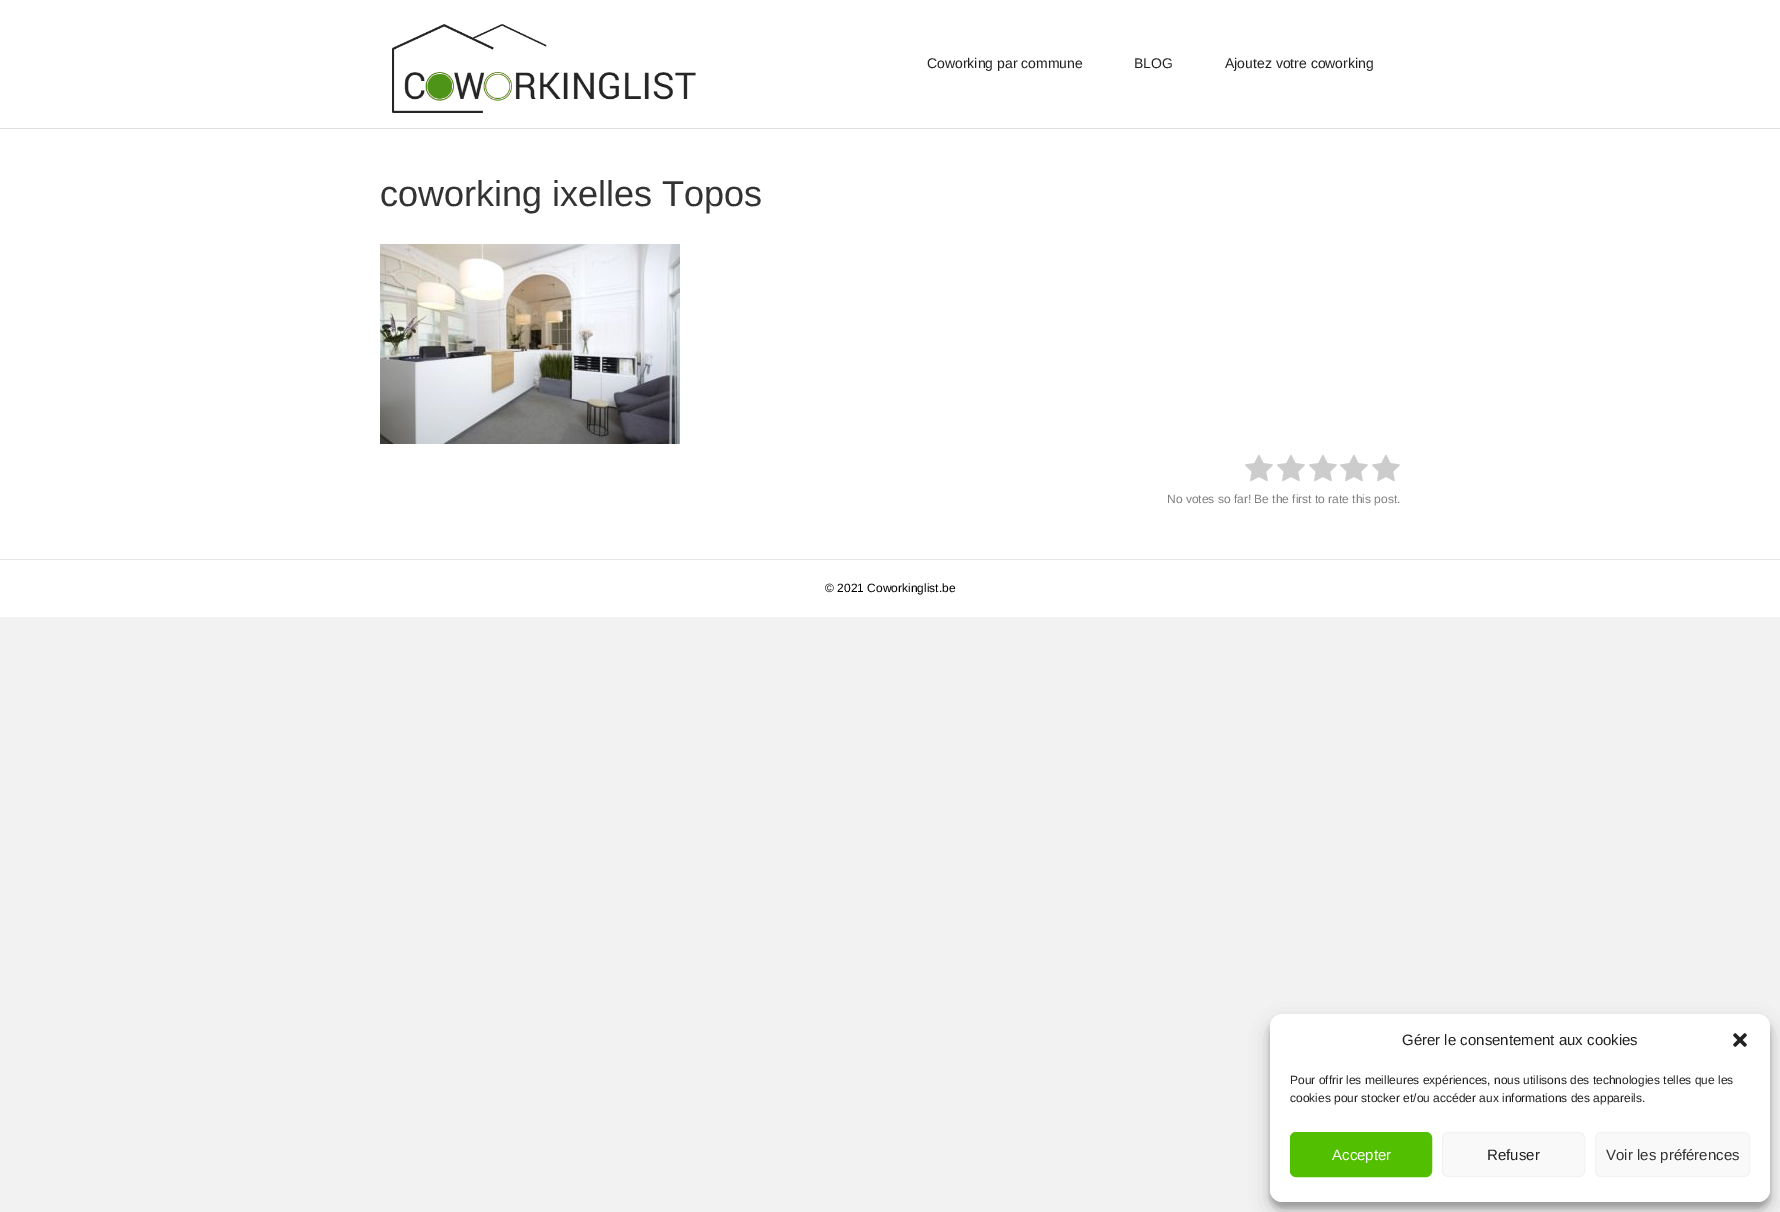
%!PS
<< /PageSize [1780 1212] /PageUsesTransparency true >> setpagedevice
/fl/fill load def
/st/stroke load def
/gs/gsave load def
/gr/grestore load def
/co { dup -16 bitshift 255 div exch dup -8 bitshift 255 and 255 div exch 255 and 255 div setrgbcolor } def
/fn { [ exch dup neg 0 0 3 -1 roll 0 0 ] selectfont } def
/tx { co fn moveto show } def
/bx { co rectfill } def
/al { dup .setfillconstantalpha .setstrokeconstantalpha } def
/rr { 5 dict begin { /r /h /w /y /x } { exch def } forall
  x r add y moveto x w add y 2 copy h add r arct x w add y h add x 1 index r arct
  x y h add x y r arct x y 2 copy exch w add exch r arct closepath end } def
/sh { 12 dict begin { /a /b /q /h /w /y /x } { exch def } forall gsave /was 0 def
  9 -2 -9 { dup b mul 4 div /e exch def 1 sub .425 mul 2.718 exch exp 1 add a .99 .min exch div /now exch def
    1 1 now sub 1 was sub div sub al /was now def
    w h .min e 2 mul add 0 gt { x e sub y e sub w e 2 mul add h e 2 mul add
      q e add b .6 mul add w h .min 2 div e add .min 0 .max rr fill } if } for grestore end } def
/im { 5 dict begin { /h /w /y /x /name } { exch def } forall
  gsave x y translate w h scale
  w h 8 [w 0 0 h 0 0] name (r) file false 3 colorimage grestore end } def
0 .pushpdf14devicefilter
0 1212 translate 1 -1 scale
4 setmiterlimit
0 0 1780 1212 16#F2F2F2 bx
0 0 1780 128 16#FFFFFF bx
0 128 1780 1 16#DEDEDE bx
(media/1.raw) 392 24 304 89 im
0 129 1780 430 16#FFFFFF bx
(media/2.raw) 380 244 300 200 im
(media/3.raw) 1245 454 28 28 im
(media/3.raw) 1277 454 28 28 im
(media/3.raw) 1309 454 28 28 im
(media/3.raw) 1340 454 28 28 im
(media/3.raw) 1372 454 28 28 im
0 560 1780 57 16#FFFFFF bx
0 559 1780 1 16#E6E6E6 bx
16#000000 co
1270 1020 500 188 12 3 .23 sh
1270 1024 500 188 12 10 .19 sh
16#FFFFFF co
1270 1014 500 188 12 rr fl
(media/4.raw) 1733 1033 14 14 im
16#52BF00 co
1290.5 1132.5 141 44 5.5 rr gs fl gr
st
16#F9F9F9 co
1442.5 1132.5 142 44 5.5 rr gs fl gr
16#F2F2F2 co
st
16#F9F9F9 co
1595.5 1132.5 154 44 5.5 rr gs fl gr
16#F2F2F2 co
st
(Coworking par commune) 927 68 /LiberationSans-Regular 14 16#212121 tx
(BLOG) 1134 68 /LiberationSans-Regular 14 16#212121 tx
(Ajoutez votre coworking) 1225 68 /LiberationSans-Regular 14 16#212121 tx
(coworking ixelles Topos) 380 206 /LiberationSans-Regular 36 16#333333 tx
(No votes so far! Be the first to rate this post.) 1167 503 /LiberationSans-Regular 12 16#808080 tx
(© 2021 Coworkinglist.be) 825 592 /LiberationSans-Regular 12 16#000000 tx
(Gérer le consentement aux cookies) 1402 1045 /LiberationSans-Regular 15 16#212121 tx
(Pour offrir les meilleures expériences, nous utilisons des technologies telles que les) 1290 1084 /LiberationSans-Regular 12 16#212121 tx
(cookies pour stocker et/ou accéder aux informations des appareils.) 1290 1102 /LiberationSans-Regular 12 16#212121 tx
(Accepter) 1332 1160 /LiberationSans-Regular 15 16#FFFFFF tx
(Refuser) 1487 1160 /LiberationSans-Regular 15 16#212121 tx
(Voir les préférences) 1606 1160 /LiberationSans-Regular 15 16#333333 tx
.poppdf14devicefilter showpage
